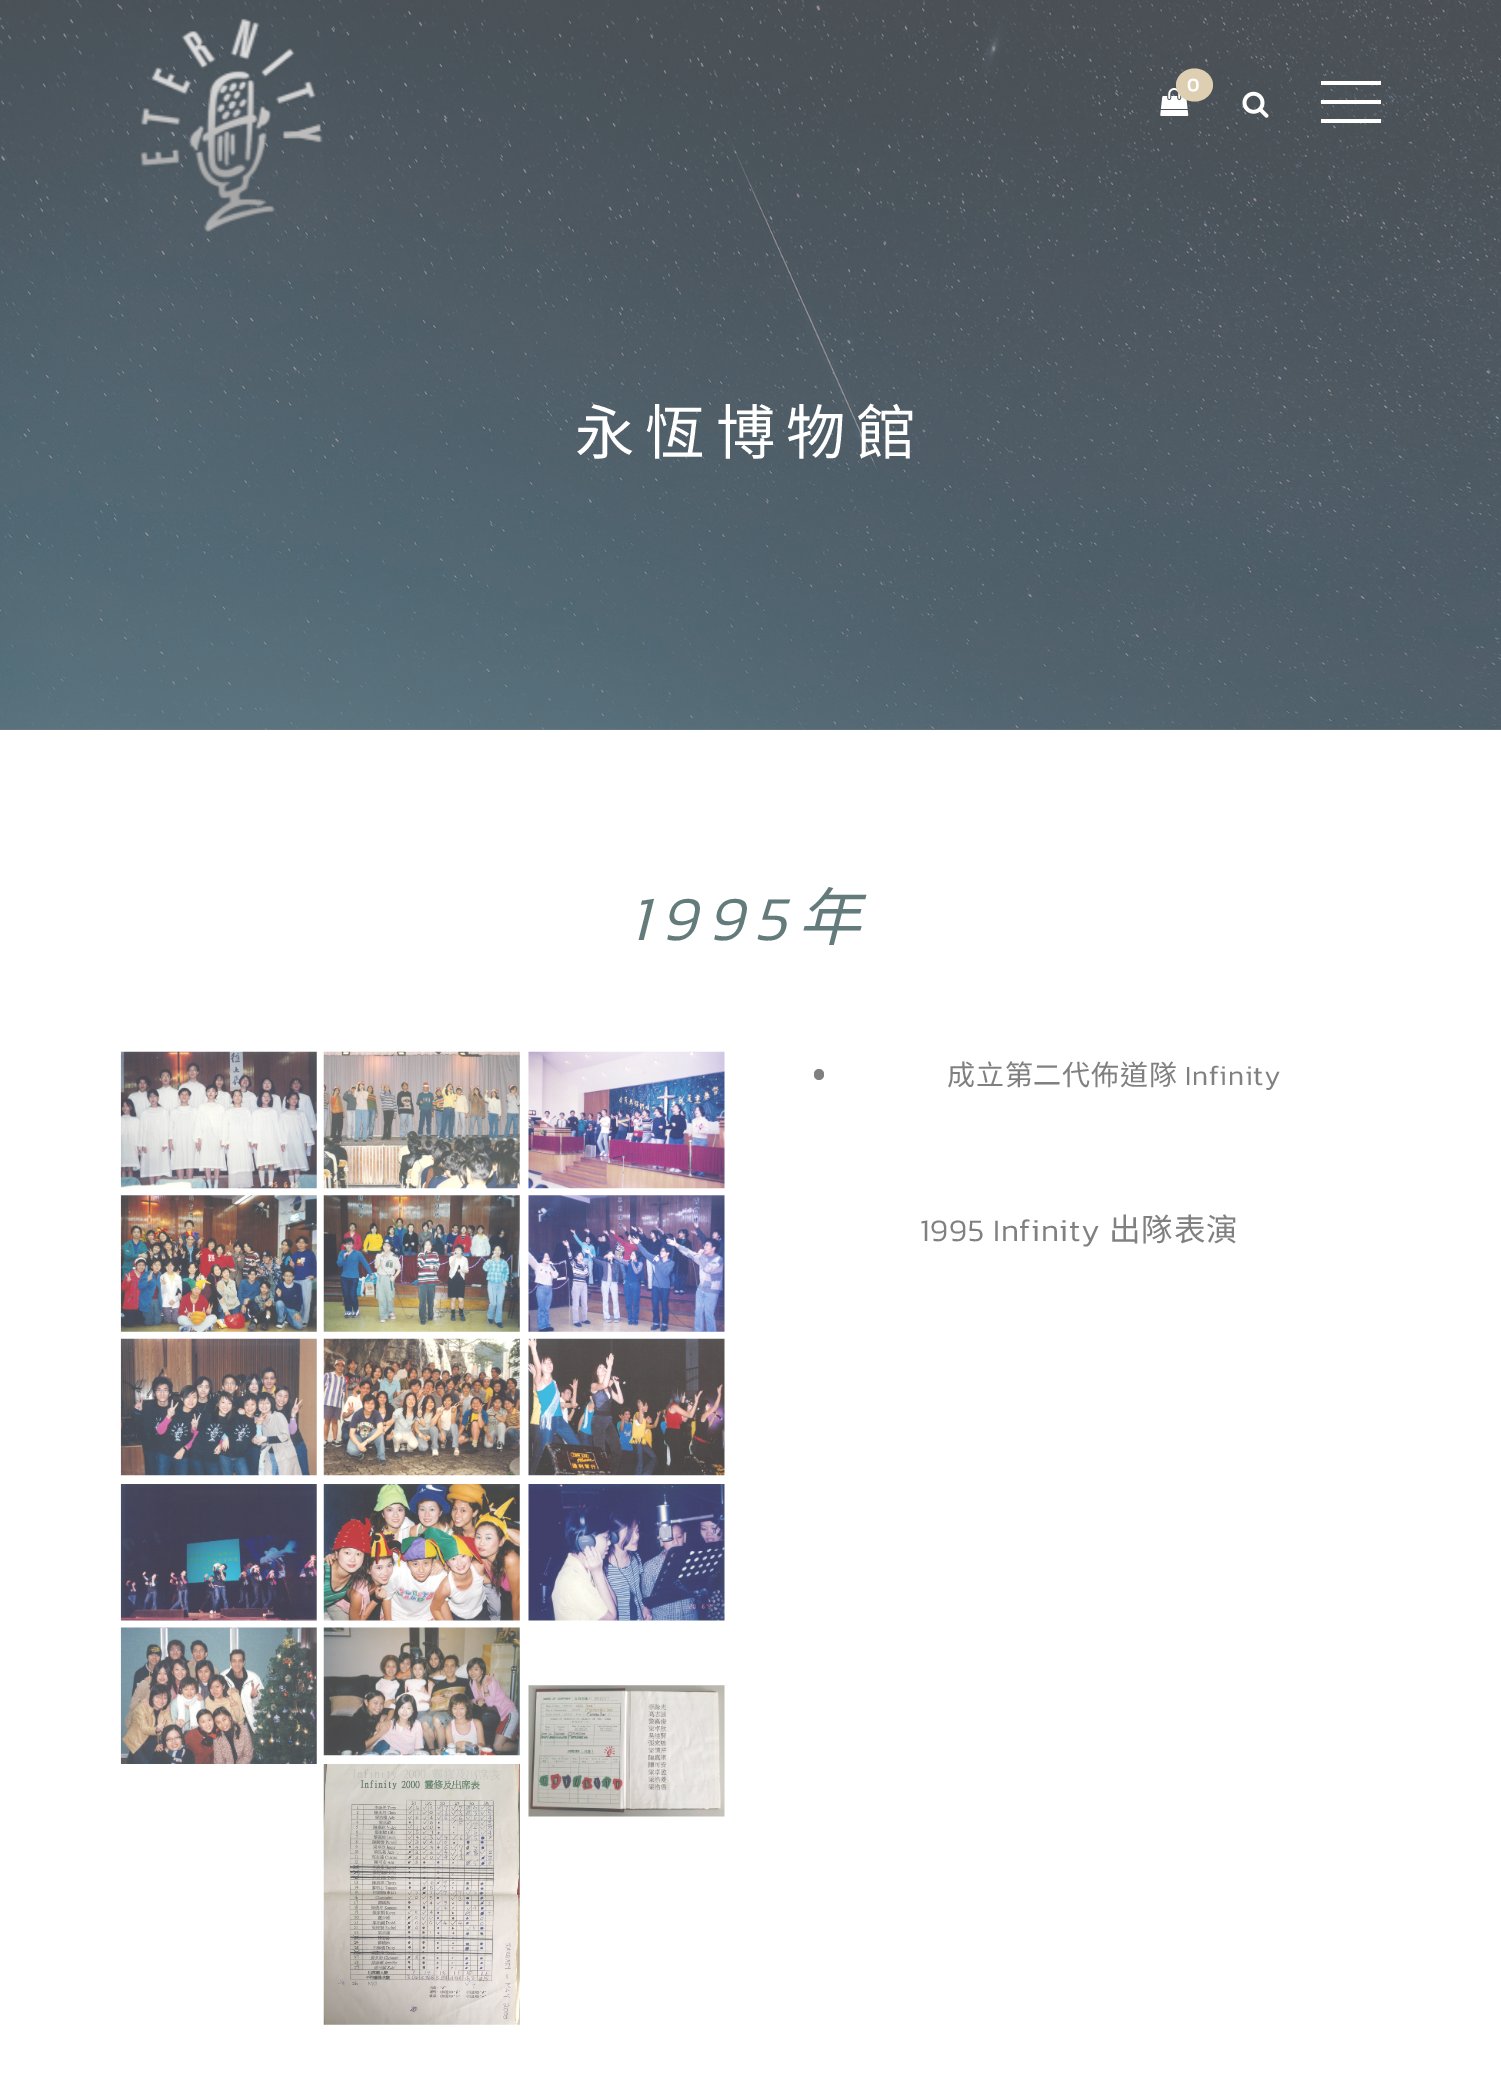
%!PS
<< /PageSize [1501 2100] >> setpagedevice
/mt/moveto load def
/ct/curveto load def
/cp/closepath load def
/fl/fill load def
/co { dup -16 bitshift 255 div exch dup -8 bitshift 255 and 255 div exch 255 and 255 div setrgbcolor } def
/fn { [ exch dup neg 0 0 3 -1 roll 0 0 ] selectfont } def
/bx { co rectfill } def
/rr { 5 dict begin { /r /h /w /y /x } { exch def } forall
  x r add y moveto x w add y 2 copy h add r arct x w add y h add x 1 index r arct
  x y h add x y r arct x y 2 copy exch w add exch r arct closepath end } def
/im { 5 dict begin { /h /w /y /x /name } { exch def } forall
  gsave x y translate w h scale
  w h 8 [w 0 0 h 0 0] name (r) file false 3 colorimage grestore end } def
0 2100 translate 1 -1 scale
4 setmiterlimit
0 0 1501 2100 16#FFFFFF bx
(media/4.raw) 0 0 1501 730 im
(media/1.raw) 140 18 183 214 im
(media/2.raw) 1160 88 29 28 im
16#DECEB2 co
1194.5 68.5 mt 1204.5 68.5 1213 76 1213 85 ct 1213 94 1204.5 101.5 1194.5 101.5 ct 1184.5 101.5 1176 94 1176 85 ct 1176 76 1184.5 68.5 1194.5 68.5 ct cp fl
(media/3.raw) 1242 91 27 27 im
1321 81 60 4 16#FFFFFF bx
1321 100 60 4 16#FFFFFF bx
1321 119 60 4 16#FFFFFF bx
(media/5.raw) 120 1051 197 138 im
(media/6.raw) 323 1051 197 138 im
(media/7.raw) 528 1051 197 138 im
(media/8.raw) 120 1195 197 137 im
(media/9.raw) 323 1195 197 137 im
(media/10.raw) 528 1195 197 137 im
(media/11.raw) 120 1338 197 138 im
(media/12.raw) 323 1338 197 138 im
(media/13.raw) 528 1338 197 138 im
(media/14.raw) 120 1484 197 137 im
(media/15.raw) 323 1484 197 137 im
(media/16.raw) 528 1484 197 137 im
(media/17.raw) 120 1627 197 137 im
(media/18.raw) 323 1627 197 129 im
(media/19.raw) 528 1685 197 132 im
(media/20.raw) 323 1764 197 261 im
16#808080 co
814 1069 10 11 5 rr fl
/Kanit-Medium 19 fn
16#FFFFFF co
1187 91 mt 2 0 (0) ashow
/NotoSansCJKHK-Regular 59.5 fn
575 454 mt 10.75 0 (永恆博物館) ashow
/Kanit-LightItalic 63 fn
16#637B7B co
629 940 mt 11.5 0 (1995) ashow
/NotoSansCJKHK-Italic 63 fn
798 940 mt 11.5 0 (年) ashow
/NotoSansCJKHK-Regular 28 fn
16#808080 co
947 1085 mt .8 0 (成立第二代佈道隊) ashow
/Kanit-Light 28 fn
1185 1085 mt .8 0 (Infinity) ashow
/Kanit-Light 31.5 fn
920 1241 mt .8 0 (1995 Infinity) ashow
/NotoSansCJKHK-Regular 31.5 fn
1109 1241 mt .8 0 (出隊表演) ashow
showpage
